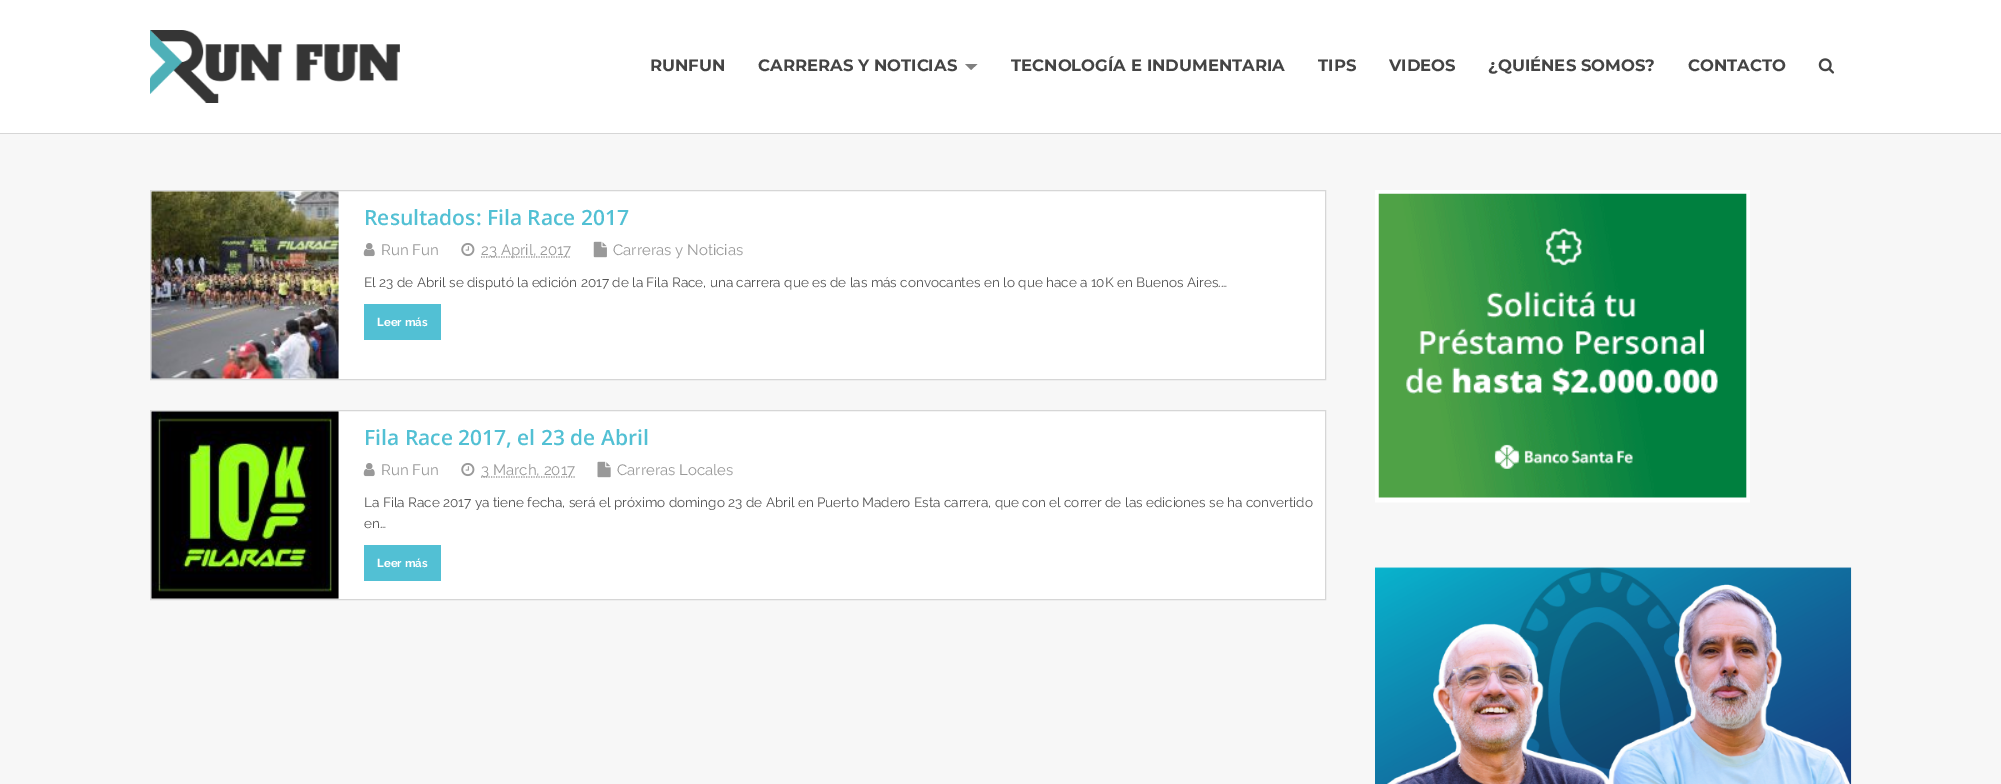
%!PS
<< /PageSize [2001 784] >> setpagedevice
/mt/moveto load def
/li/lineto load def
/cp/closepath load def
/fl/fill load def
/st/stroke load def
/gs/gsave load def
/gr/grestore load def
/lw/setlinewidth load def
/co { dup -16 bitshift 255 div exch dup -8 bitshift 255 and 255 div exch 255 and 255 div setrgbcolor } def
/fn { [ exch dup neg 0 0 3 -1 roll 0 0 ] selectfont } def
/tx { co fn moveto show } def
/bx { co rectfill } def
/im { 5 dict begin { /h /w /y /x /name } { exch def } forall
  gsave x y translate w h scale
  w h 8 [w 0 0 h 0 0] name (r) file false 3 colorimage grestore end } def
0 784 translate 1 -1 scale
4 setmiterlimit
0 0 2001 784 16#F7F7F7 bx
0 0 2001 133 16#FFFFFF bx
0 133 2001 1 16#D6D6D6 bx
(media/1.raw) 150 30 250 73 im
16#808080 co
965 64 mt 977.5 64 li 971 70 li cp fl
(media/2.raw) 1818 58 17 16 im
16#FFFFFF co
150.5 190.5 mt 1325.5 190.5 li 1325.5 379.5 li 150.5 379.5 li cp gs fl gr
16#D6D6D6 co
st
(media/3.raw) 151 191 188 188 im
(media/4.raw) 363 243 12 14 im
(media/5.raw) 461 243 14 14 im
16#999999 co
1.2 lw
[1.25 1.25] 0 setdash
481 257 mt 571 257 li st
(media/6.raw) 593 241 14 17 im
364 304 77 36 16#52C0D4 bx
16#FFFFFF co
150.5 410.5 mt 1325.5 410.5 li 1325.5 599.5 li 150.5 599.5 li cp gs fl gr
16#D6D6D6 co
1 lw
[] 0 setdash
st
(media/7.raw) 151 411 188 188 im
(media/4.raw) 363 463 12 14 im
(media/5.raw) 461 463 14 14 im
16#999999 co
1.2 lw
[1.25 1.25] 0 setdash
481 477 mt 575 477 li st
(media/8.raw) 597 461 14 17 im
364 545 77 36 16#52C0D4 bx
(media/9.raw) 1375 190 375 313 im
(media/10.raw) 1375 567 477 217 im
(RUNFUN) 650 71 /Montserrat-Bold 16.5 16#444444 tx
(CARRERAS Y NOTICIAS) 758 71 /Montserrat-Bold 16.5 16#444444 tx
(TECNOLOGÍA E INDUMENTARIA) 1011 71 /Montserrat-Bold 16.5 16#444444 tx
(TIPS) 1318 71 /Montserrat-Bold 16.5 16#444444 tx
(VIDEOS) 1389 71 /Montserrat-Bold 16.5 16#444444 tx
(¿QUIÉNES SOMOS?) 1488 71 /Montserrat-Bold 16.5 16#444444 tx
(CONTACTO) 1688 71 /Montserrat-Bold 16.5 16#444444 tx
(Resultados: Fila Race 2017) 364 225 /OpenSans-SemiBold 21 16#52C0D4 tx
(Run Fun) 381 255 /Raleway-Regular 15 16#999999 tx
(23 April, 2017) 481 255 /Raleway-Regular 15 16#999999 tx
(Carreras y Noticias) 613 255 /Raleway-Regular 15 16#999999 tx
(El 23 de Abril se disputó la edición 2017 de la Fila Race, una carrera que es de las más convocantes en lo que hace a 10K en Buenos Aires.…) 364 287 /Raleway-Regular 13.5 16#555555 tx
(Leer más) 377 326 /Raleway-Bold 11.5 16#FFFFFF tx
(Fila Race 2017, el 23 de Abril) 364 445 /OpenSans-SemiBold 21 16#52C0D4 tx
(Run Fun) 381 475 /Raleway-Regular 15 16#999999 tx
(3 March, 2017) 481 475 /Raleway-Regular 15 16#999999 tx
(Carreras Locales) 617 475 /Raleway-Regular 15 16#999999 tx
(La Fila Race 2017 ya tiene fecha, será el próximo domingo 23 de Abril en Puerto Madero Esta carrera, que con el correr de las ediciones se ha convertido) 364 507 /Raleway-Regular 13.5 16#555555 tx
(en…) 364 528 /Raleway-Regular 13.5 16#555555 tx
(Leer más) 377 567 /Raleway-Bold 11.5 16#FFFFFF tx
showpage
